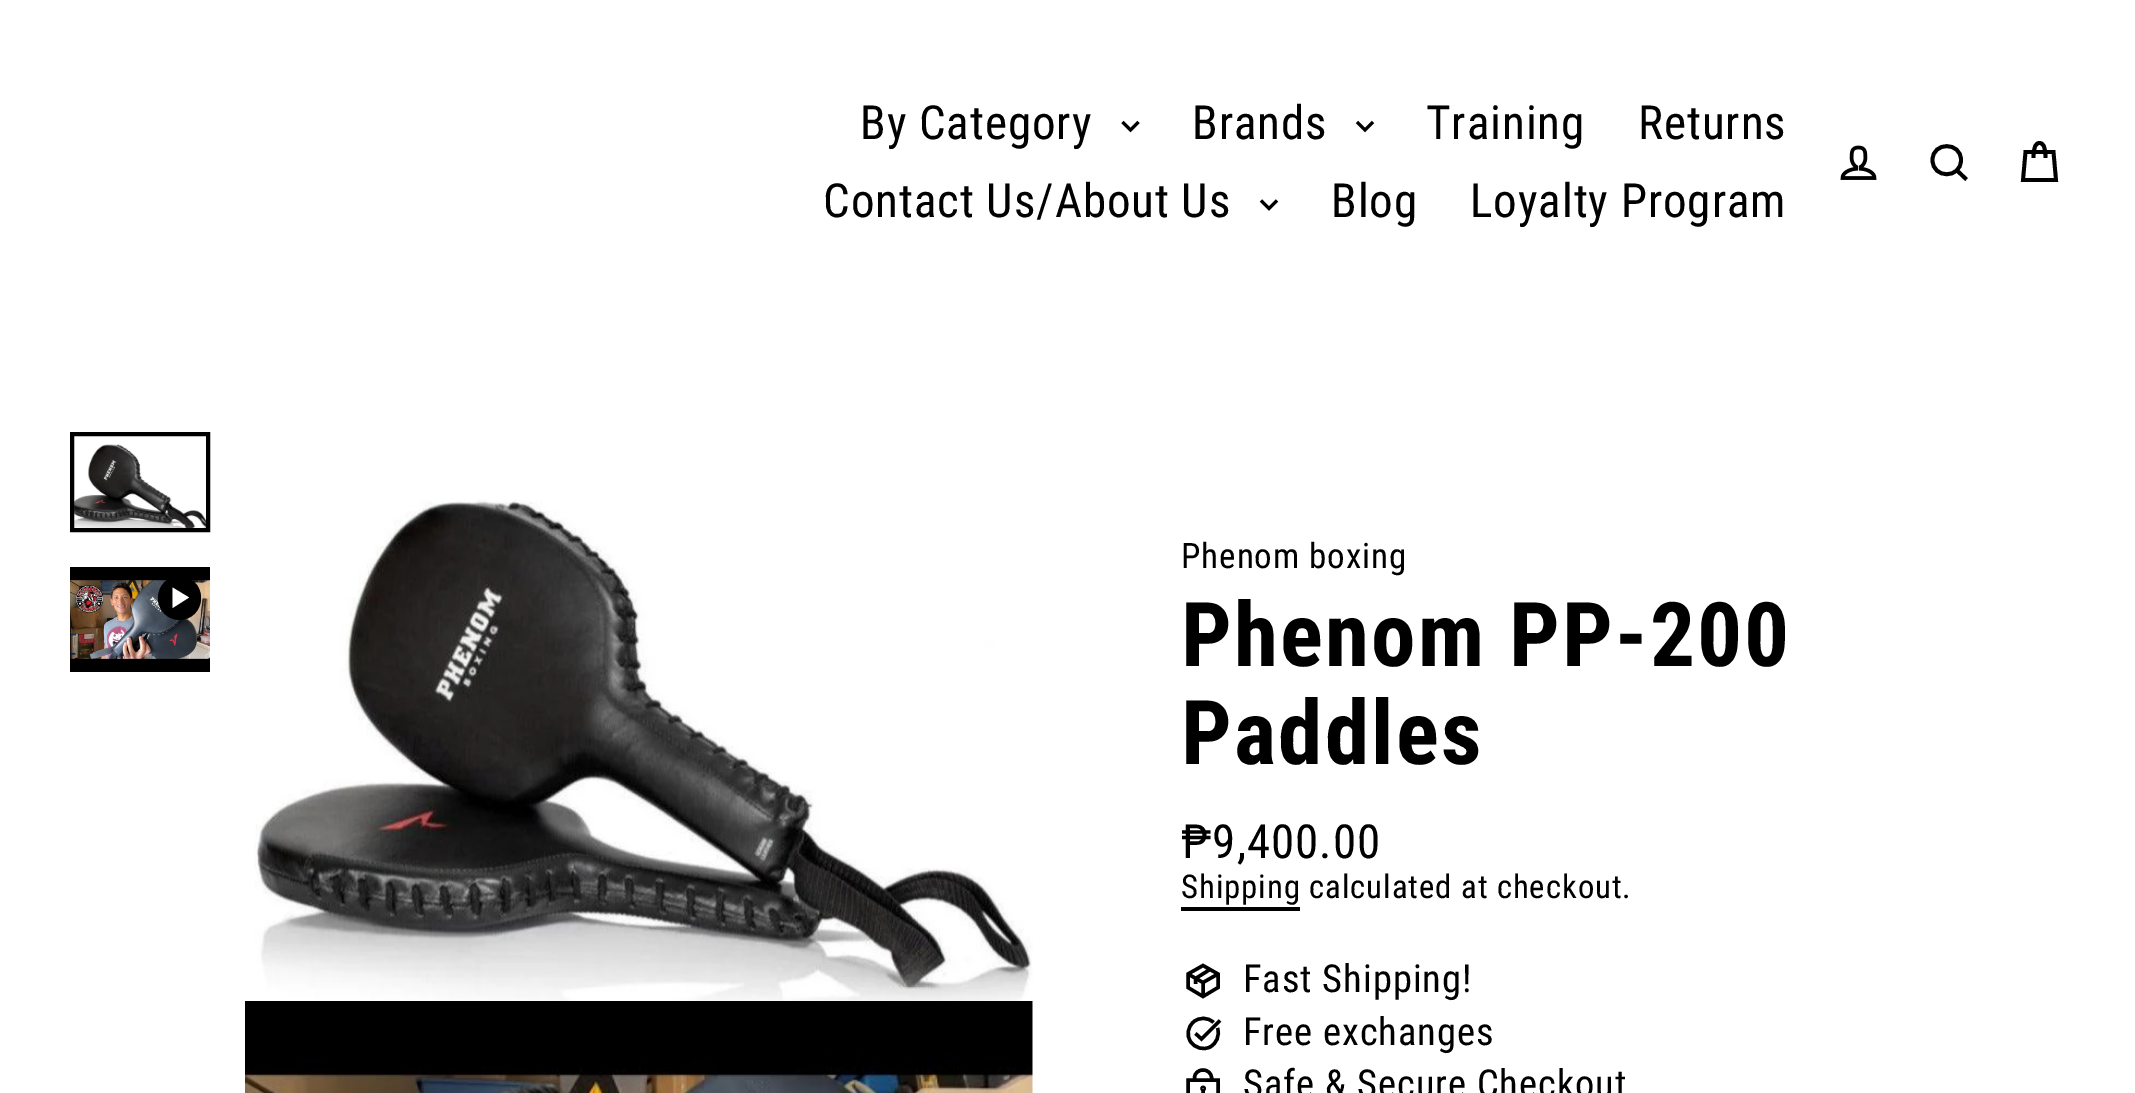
%!PS
<< /PageSize [2135 1093] >> setpagedevice
/mt/moveto load def
/li/lineto load def
/ct/curveto load def
/cp/closepath load def
/fl/fill load def
/st/stroke load def
/lw/setlinewidth load def
/co { dup -16 bitshift 255 div exch dup -8 bitshift 255 and 255 div exch 255 and 255 div setrgbcolor } def
/fn { [ exch dup neg 0 0 3 -1 roll 0 0 ] selectfont } def
/bx { co rectfill } def
/ci { newpath 0 360 arc closepath } def
/rr { 5 dict begin { /r /h /w /y /x } { exch def } forall
  x r add y moveto x w add y 2 copy h add r arct x w add y h add x 1 index r arct
  x y h add x y r arct x y 2 copy exch w add exch r arct closepath end } def
/im { 5 dict begin { /h /w /y /x /name } { exch def } forall
  gsave x y translate w h scale
  w h 8 [w 0 0 h 0 0] name (r) file false 3 colorimage grestore end } def
0 1093 translate 1 -1 scale
4 setmiterlimit
0 0 2135 1093 16#FFFFFF bx
16#000000 co
3.1 lw
1122.5 122 mt 1130.5 130 li 1138.5 122 li st
1357 122 mt 1365 130 li 1373 122 li st
1261 200.5 mt 1269 208.5 li 1277 200.5 li st
(media/1.raw) 1840 145 37 35 im
3.8 lw
1961 160 mt 1961 179 1932.5 179 1932.5 160 ct 1932.5 141.5 1961 141.5 1961 160 ct cp 1966.5 179.5 mt 1957 170.5 li st
2033.5 158 mt 2033.5 146 2036 143 2039.5 143 ct 2043 143 2045.5 146 2045.5 158 ct 2025.5 152 mt 2053.5 152 li 2056 180 li 2023 180 li cp st
(media/2.raw) 74 444 132 84 im
4 lw
72 434 136 96 rectstroke
(media/3.raw) 70 567 140 105 im
158 576 43 44 21.5 rr fl
16#FFFFFF co
172.5 587.5 mt 172.5 608 li 189 597.5 li cp fl
(media/4.raw) 254 499 779 502 im
(media/5.raw) 245 1001 788 92 im
1181 907 119 4 16#000000 bx
3.4 lw
1203 996.5 mt 1188 987.5 li 1188 974 li 1203 965.5 li 1218 974 li 1218 987.5 li cp 1203 996.5 mt 1203 982.5 li 1218 974 li 1203 982.5 mt 1188 974 li 1210 969.5 mt 1195.5 978.5 li 1195.5 984 li st
1217.5 1028 mt 1220 1035.5 1216.5 1043.5 1210 1047 ct 1203 1050.5 1195 1048 1190.5 1041.5 ct 1186.5 1035.5 1187.5 1027 1193.5 1022 ct 1199 1017 1208 1017 1213.5 1022.5 ct 1195.5 1033.5 mt 1201.5 1039 li 1220 1020.5 li st
1194.5 1080 mt 1194.5 1078 li 1194.5 1073 1198.5 1070 1203 1070 ct 1208 1070 1211.5 1073.5 1211.5 1078 ct 1211.5 1080 li 1188 1080 mt 1218 1080 li 1218 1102 li 1188 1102 li cp 1203 1089.5 mt 1203 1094.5 li st
1203.1 1088.5 1.1 ci st
/RobotoCondensed-Regular 47 fn
860 139 mt .95 0 (By Category) ashow
1192 139 mt .95 0 (Brands) ashow
1426 139 mt .95 0 (Training) ashow
1638 139 mt .95 0 (Returns) ashow
823 217 mt .95 0 (Contact Us/About Us) ashow
1331 217 mt .95 0 (Blog) ashow
1470 217 mt .95 0 (Loyalty Program) ashow
/RobotoCondensed-Regular 35 fn
1181 568 mt .95 0 (Phenom boxing) ashow
/RobotoCondensed-Bold 89.25 fn
1181 666 mt 2.25 0 (Phenom PP-200) ashow
1181 764 mt 2.25 0 (Paddles) ashow
/RobotoCondensed-Regular 47 fn
1181 858 mt .95 0 (₱9,400.00) ashow
/RobotoCondensed-Regular 32.75 fn
1181 898 mt .95 0 (Shipping calculated at checkout.) ashow
/RobotoCondensed-Regular 38.5 fn
1243 992 mt .95 0 (Fast Shipping!) ashow
1243 1045 mt .95 0 (Free exchanges) ashow
1243 1097 mt .95 0 (Safe & Secure Checkout) ashow
showpage
